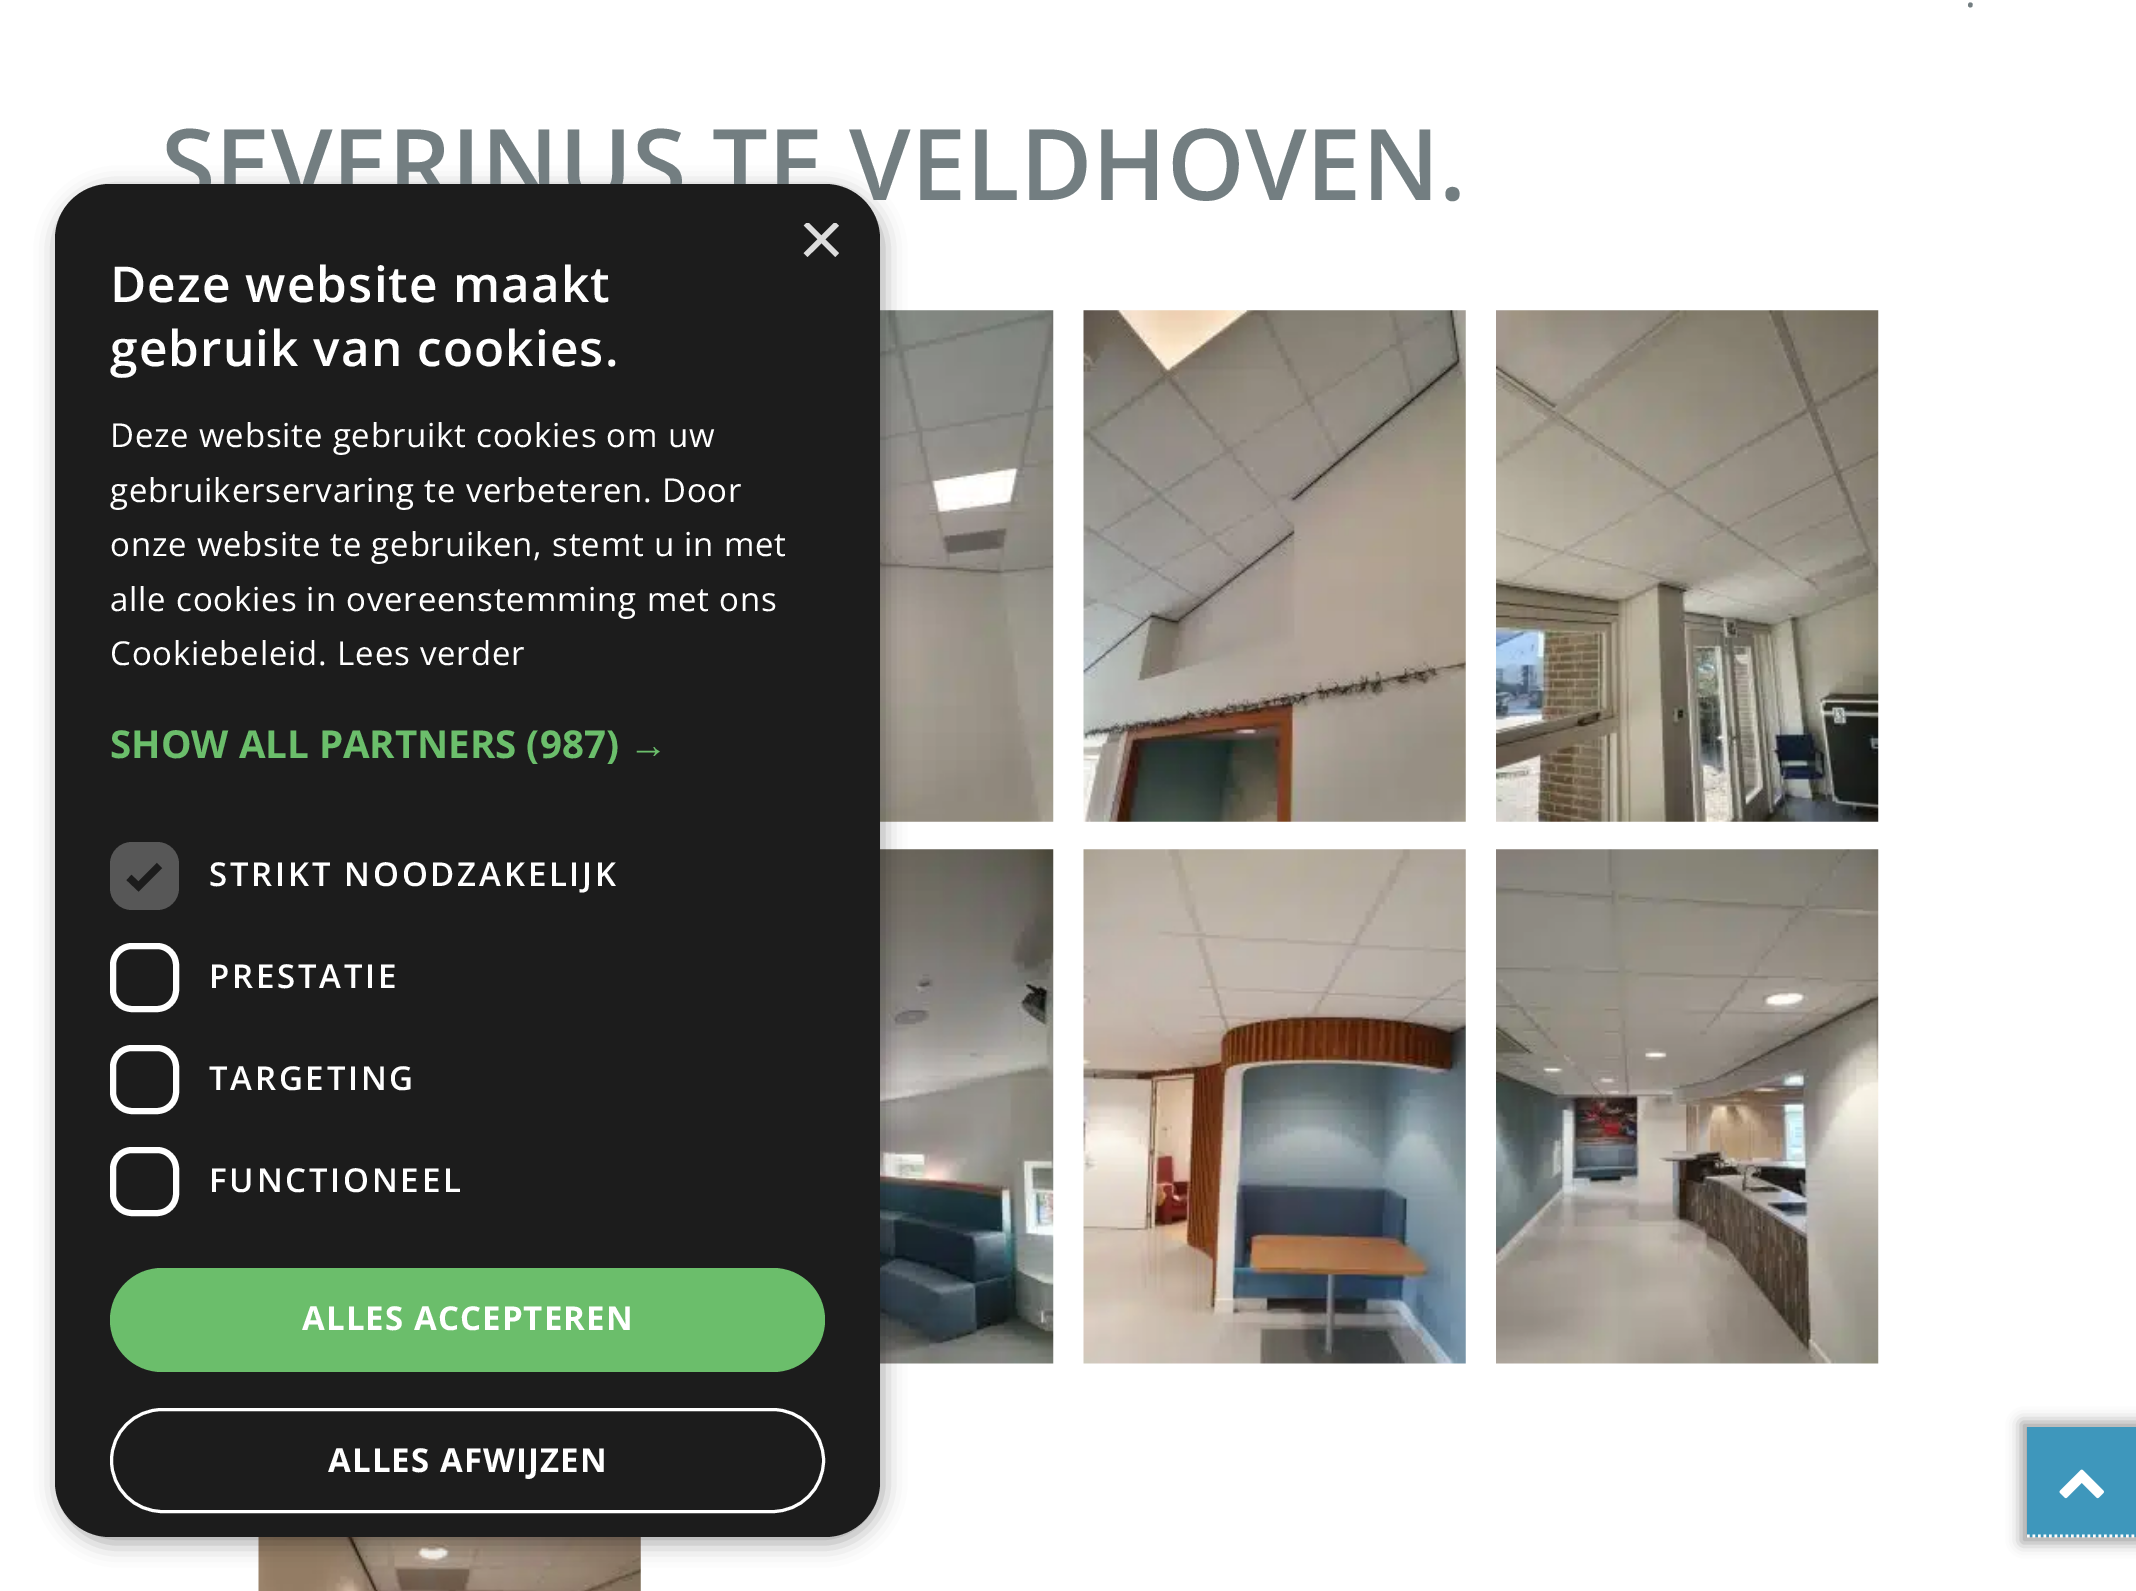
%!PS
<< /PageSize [2136 1591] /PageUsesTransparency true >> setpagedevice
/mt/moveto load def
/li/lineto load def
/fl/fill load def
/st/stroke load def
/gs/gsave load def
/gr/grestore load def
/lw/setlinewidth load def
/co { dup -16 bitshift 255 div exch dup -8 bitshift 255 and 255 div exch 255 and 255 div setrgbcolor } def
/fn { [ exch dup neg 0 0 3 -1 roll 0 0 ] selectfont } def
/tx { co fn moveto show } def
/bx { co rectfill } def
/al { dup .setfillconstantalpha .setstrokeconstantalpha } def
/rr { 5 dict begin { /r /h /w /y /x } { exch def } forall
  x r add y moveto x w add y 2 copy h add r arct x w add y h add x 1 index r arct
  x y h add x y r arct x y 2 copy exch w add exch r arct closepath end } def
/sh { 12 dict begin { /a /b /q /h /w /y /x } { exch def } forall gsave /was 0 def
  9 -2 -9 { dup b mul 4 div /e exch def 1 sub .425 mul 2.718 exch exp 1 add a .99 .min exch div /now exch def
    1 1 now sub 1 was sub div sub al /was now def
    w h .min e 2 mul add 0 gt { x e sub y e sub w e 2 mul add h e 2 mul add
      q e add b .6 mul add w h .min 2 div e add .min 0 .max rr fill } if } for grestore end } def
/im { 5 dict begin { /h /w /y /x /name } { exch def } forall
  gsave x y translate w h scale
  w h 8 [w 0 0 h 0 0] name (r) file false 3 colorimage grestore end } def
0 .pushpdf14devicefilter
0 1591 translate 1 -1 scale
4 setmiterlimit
0 0 2136 1591 16#FFFFFF bx
(media/1.raw) 880 310 174 512 im
(media/2.raw) 1083 310 383 512 im
(media/3.raw) 1496 310 383 512 im
(media/4.raw) 880 849 174 515 im
(media/5.raw) 1083 849 383 515 im
(media/6.raw) 1496 849 383 515 im
(media/7.raw) 258 1537 383 54 im
16#000000 co
2021 1422 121 121 0 7 .37 sh
2027 1427 109 110 16#3E97BC bx
16#FFFFFF co
2.8 lw
[2.75 2.75] 0 setdash
2027 1536 mt 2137 1536 li st
(media/8.raw) 2059 1469 45 30 im
16#000000 co
58 190 825 1353 55 11 .35 sh
(.) 1965 7 /OpenSans-Regular 41 16#737E81 tx
(SEVERINUS TE VELDHOVEN.) 161 200 /OpenSans-SemiBold 99 16#737E81 tx
16#1C1C1C co
55 184 825 1353 55 rr fl
gs
798 223 41 41 rectclip
(×) 798 266 /LiberationSans-Regular 80 16#DDDDDD tx
gr
/OpenSans-SemiBold 49.5 fn
16#FFFFFF co
110 302 mt 1.1 0 (Deze website maakt) ashow
110 366 mt 1.1 0 (gebruik van cookies.) ashow
/OpenSans-Regular 33 fn
110 447 mt .8 0 (Deze website gebruikt cookies om uw) ashow
110 502 mt .8 0 (gebruikerservaring te verbeteren. Door) ashow
110 556 mt .8 0 (onze website te gebruiken, stemt u in met) ashow
110 611 mt .8 0 (alle cookies in overeenstemming met ons) ashow
110 665 mt .8 0 (Cookiebeleid. Lees verder) ashow
(SHOW ALL PARTNERS \(987\)) 110 758 /OpenSans-Bold 38.5 16#6BBE6B tx
(→) 629 758 /LiberationSans-Bold 38.5 16#6BBE6B tx
16#575757 co
110 842 69 68 22 rr fl
16#1C1C1C co
7.2 lw
[] 0 setdash
129 877.5 mt 138.5 886.5 li 159.5 865.5 li st
/OpenSans-SemiBold 33 fn
16#FFFFFF co
209 886 mt 2.75 0 (STRIKT NOODZAKELIJK) ashow
6 lw
113 946 63 63 19 rr st
209 988 mt 2.75 0 (PRESTATIE) ashow
113 1048 63 63 19 rr st
209 1090 mt 2.75 0 (TARGETING) ashow
113 1150 63 63 19 rr st
209 1192 mt 2.75 0 (FUNCTIONEEL) ashow
16#6BBE6B co
110 1268 715 104 52 rr fl
/OpenSans-Bold 33 fn
16#FFFFFF co
302 1330 mt 1.1 0 (ALLES ACCEPTEREN) ashow
3 lw
111.5 1409.5 712 102 51 rr st
328 1472 mt 1.1 0 (ALLES AFWIJZEN) ashow
.poppdf14devicefilter showpage
